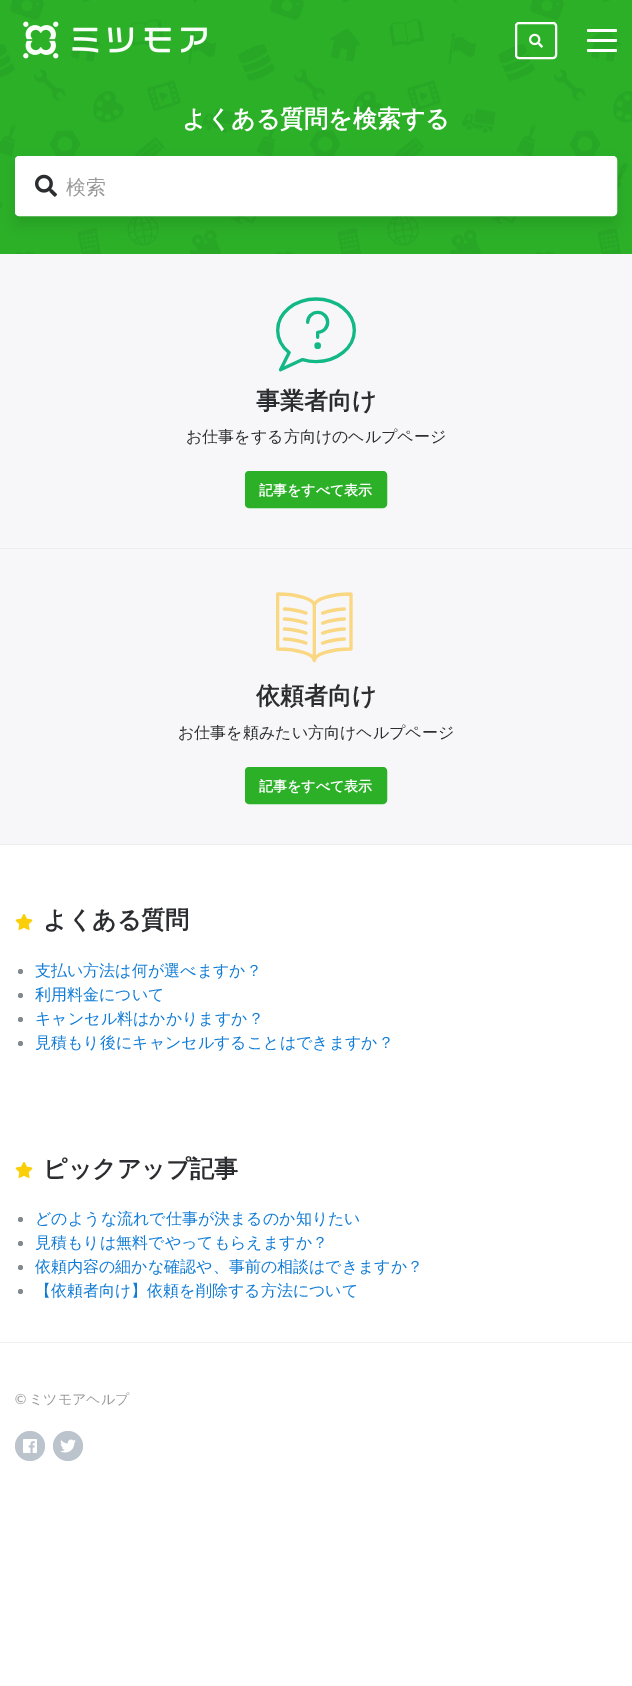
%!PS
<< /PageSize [632 1686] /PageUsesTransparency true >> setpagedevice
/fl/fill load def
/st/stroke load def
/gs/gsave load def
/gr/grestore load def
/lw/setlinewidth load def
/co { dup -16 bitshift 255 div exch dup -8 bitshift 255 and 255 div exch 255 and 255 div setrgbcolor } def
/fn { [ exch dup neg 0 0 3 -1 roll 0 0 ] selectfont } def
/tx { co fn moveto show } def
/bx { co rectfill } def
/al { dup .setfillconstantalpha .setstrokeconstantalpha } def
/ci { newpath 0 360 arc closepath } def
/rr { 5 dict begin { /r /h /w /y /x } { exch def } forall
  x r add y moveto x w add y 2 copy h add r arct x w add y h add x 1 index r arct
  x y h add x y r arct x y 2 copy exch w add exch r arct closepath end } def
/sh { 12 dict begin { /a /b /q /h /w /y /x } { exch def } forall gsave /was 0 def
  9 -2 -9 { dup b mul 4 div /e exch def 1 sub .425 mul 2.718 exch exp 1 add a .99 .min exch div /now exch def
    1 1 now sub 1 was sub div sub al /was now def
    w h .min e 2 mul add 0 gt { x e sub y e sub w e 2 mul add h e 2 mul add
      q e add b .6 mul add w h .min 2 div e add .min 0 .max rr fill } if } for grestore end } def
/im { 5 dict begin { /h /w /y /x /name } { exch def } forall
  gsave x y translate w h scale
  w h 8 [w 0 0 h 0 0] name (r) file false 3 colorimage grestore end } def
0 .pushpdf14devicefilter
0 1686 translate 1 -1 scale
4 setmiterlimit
0 0 632 1686 16#FFFFFF bx
(media/3.raw) 0 0 632 254 im
(media/1.raw) 23 21 184 38 im
2 lw
516 23 40 35 3 rr st
(media/2.raw) 529 33 14 15 im
587 39 30 3 1.5 rr fl
587 29 30 3 1.5 rr fl
587 49 30 3 1.5 rr fl
16#000000 co
15 165 602 60 4 7 .1 sh
16#FFFFFF co
15.5 156.5 601 59 3.5 rr gs fl gr
1 lw
st
(media/4.raw) 35 174 22 23 im
0 254 632 590 16#F7F7F9 bx
0 844 632 1 16#ECEEEF bx
(media/5.raw) 276 297 80 75 im
16#2BB028 co
246 472 140 35 3 rr gs fl gr
2 lw
st
0 548 632 1 16#ECEEEF bx
(media/6.raw) 276 592 77 71 im
16#2BB028 co
246 768 140 35 3 rr gs fl gr
st
(media/7.raw) 15 914 18 16 im
16#818A91 co
20.5 971.5 2.5 ci fl
20.5 995.5 2.5 ci fl
20.5 1019.5 2.5 ci fl
20.5 1043.5 2.5 ci fl
(media/7.raw) 15 1162 18 16 im
20.5 1219.5 2.5 ci fl
20.5 1243.5 2.5 ci fl
20.5 1267.5 2.5 ci fl
20.5 1291.5 2.5 ci fl
0 1342 632 1 16#ECEEEF bx
16#BBC3CC co
30 1446 15 ci fl
(media/8.raw) 23 1439 14 14 im
68 1446 15 ci fl
(media/9.raw) 60 1439 16 14 im
(よくある質問を検索する) 182 127 /WenQuanYiZenHei-Bold 24 16#FFFFFF tx
(検索) 66 194 /WenQuanYiZenHei-Medium 20 16#999999 tx
(事業者向け) 256 409 /WenQuanYiZenHei-Bold 24 16#2C2D30 tx
(お仕事をする方向けのヘルプページ) 186 442 /WenQuanYiZenHei-Medium 16 16#2C2D30 tx
(記事をすべて表示) 259 495 /WenQuanYiZenHei-Bold 14 16#FFFFFF tx
(依頼者向け) 256 704 /WenQuanYiZenHei-Bold 24 16#2C2D30 tx
(お仕事を頼みたい方向けヘルプページ) 178 738 /WenQuanYiZenHei-Medium 16 16#2C2D30 tx
(記事をすべて表示) 259 791 /WenQuanYiZenHei-Bold 14 16#FFFFFF tx
(よくある質問) 43 928 /WenQuanYiZenHei-Bold 24 16#2C2D30 tx
(支払い方法は何が選べますか？) 35 976 /WenQuanYiZenHei-Medium 16 16#107CD5 tx
(利用料金について) 35 1000 /WenQuanYiZenHei-Medium 16 16#107CD5 tx
(キャンセル料はかかりますか？) 35 1024 /WenQuanYiZenHei-Medium 16 16#107CD5 tx
(見積もり後にキャンセルすることはできますか？) 35 1048 /WenQuanYiZenHei-Medium 16 16#107CD5 tx
(ピックアップ記事) 43 1177 /WenQuanYiZenHei-Bold 24 16#2C2D30 tx
(どのような流れで仕事が決まるのか知りたい) 35 1224 /WenQuanYiZenHei-Medium 16 16#107CD5 tx
(見積もりは無料でやってもらえますか？) 35 1248 /WenQuanYiZenHei-Medium 16 16#107CD5 tx
(依頼内容の細かな確認や、事前の相談はできますか？) 35 1272 /WenQuanYiZenHei-Medium 16 16#107CD5 tx
(【依頼者向け】依頼を削除する方法について) 35 1296 /WenQuanYiZenHei-Medium 16 16#107CD5 tx
(©) 15 1404 /Lato-Regular 14 16#999999 tx
(ミツモアヘルプ) 29 1404 /WenQuanYiZenHei-Medium 14 16#999999 tx
.poppdf14devicefilter showpage
